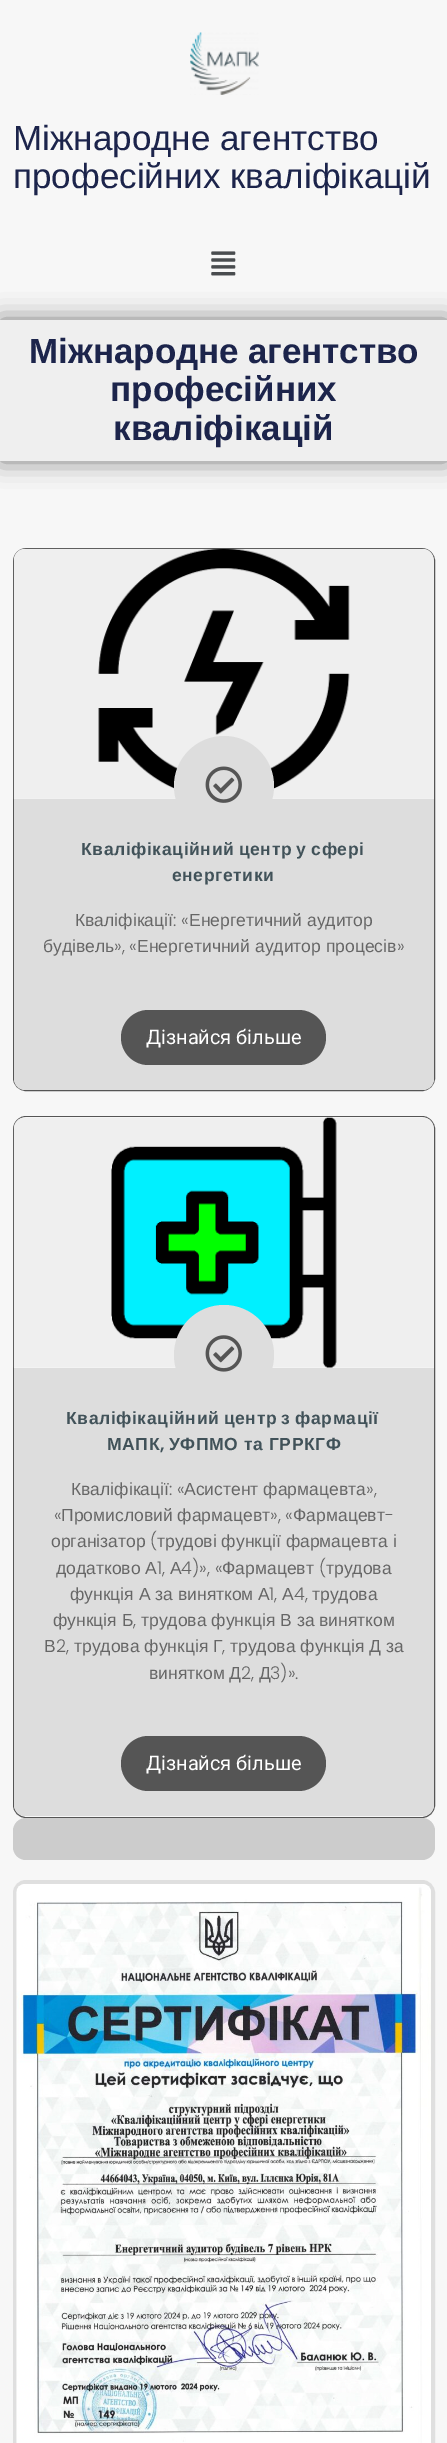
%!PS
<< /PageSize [447 2443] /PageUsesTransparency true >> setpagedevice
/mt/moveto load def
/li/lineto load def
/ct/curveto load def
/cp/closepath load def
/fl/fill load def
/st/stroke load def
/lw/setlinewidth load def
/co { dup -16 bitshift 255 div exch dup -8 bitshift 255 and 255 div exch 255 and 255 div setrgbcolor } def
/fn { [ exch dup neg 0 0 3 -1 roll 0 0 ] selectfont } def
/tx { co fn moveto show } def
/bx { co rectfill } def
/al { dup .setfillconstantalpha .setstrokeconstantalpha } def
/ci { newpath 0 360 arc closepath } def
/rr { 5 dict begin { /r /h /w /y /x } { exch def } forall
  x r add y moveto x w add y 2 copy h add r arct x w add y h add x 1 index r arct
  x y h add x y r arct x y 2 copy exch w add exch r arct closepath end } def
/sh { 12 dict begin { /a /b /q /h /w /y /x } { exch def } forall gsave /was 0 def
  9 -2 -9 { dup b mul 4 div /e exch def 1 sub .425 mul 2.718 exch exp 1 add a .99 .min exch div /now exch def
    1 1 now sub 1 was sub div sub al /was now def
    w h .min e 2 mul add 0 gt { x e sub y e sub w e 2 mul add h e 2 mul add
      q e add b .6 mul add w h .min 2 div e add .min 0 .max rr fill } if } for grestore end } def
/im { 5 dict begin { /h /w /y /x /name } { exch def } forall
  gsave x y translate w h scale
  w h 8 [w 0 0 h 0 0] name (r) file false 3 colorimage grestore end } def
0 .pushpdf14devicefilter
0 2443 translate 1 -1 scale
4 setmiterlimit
0 0 447 2443 16#F7F7F7 bx
(media/1.raw) 190 32 69 63 im
(media/2.raw) 211 251 25 25 im
16#000000 co
0 320 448 141 0 12.5 .5 sh
0 320 447 141 16#EFEFEF bx
16#555555 co
13.5 548.5 421 542 12.5 rr st
(media/3.raw) 13 548 421 251 im
16#DDDDDD co
14 799 mt 434 799 li 434 1079 li 434 1085 429 1090 423 1090 ct 25 1090 li 19 1090 14 1085 14 1079 ct cp fl
224 786 50 ci fl
(media/4.raw) 205 766 37 37 im
16#555555 co
121 1010 205 55 27.5 rr fl
13.5 1116.5 421 701 12.5 rr st
(media/5.raw) 13 1117 421 251 im
16#DDDDDD co
14 1368 mt 434 1368 li 434 1805 li 434 1811 429 1816 423 1816 ct 25 1816 li 19 1816 14 1811 14 1805 ct cp fl
224 1355 50 ci fl
(media/6.raw) 205 1335 37 37 im
16#555555 co
121 1736 205 55 27.5 rr fl
16#CCCCCC co
13 1818 422 42 13 rr fl
16#DFDFDF co
4 lw
15 1882 418 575 11 rr st
(media/7.raw) 16 1884 415 559 im
(Міжнародне агентство) 13 150 /LiberationSans-Regular 35 16#1C244B tx
(професійних кваліфікацій) 13 188 /LiberationSans-Regular 35 16#1C244B tx
/LiberationSans-Bold 35 fn
29 363 mt -1 0 32 (Міжнародне агентство) widthshow
(професійних) 110 401 /LiberationSans-Bold 35 16#1C244B tx
(кваліфікацій) 113 440 /LiberationSans-Bold 35 16#1C244B tx
/LiberationSans-Bold 17.5 fn
16#415259 co
81 855 mt -1 0 32 .6 0 (Кваліфікаційний центр у сфері) awidthshow
172 881 mt .6 0 (енергетики) ashow
(Кваліфікації) 75 926 /LiberationSans-Regular 17.5 16#666666 tx
(: «) 173 926 /Poppins-Light 17.5 16#666666 tx
(Енергетичний аудитор) 189 926 /LiberationSans-Regular 17.5 16#666666 tx
(будівель) 43 952 /LiberationSans-Regular 17.5 16#666666 tx
(», «) 114 952 /Poppins-Light 17.5 16#666666 tx
(Енергетичний аудитор процесів) 137 952 /LiberationSans-Regular 17.5 16#666666 tx
(») 397 952 /Poppins-Light 17.5 16#666666 tx
(Дізнайся більше) 146 1044 /Roboto-Regular 20 16#FFFFFF tx
/LiberationSans-Bold 17.5 fn
16#415259 co
66 1424 mt -1 0 32 .6 0 (Кваліфікаційний центр з фармації) awidthshow
107 1450 mt .6 0 (МАПК) ashow
/Poppins-SemiBold 17.5 fn
160 1450 mt .6 0 (,) ashow
/LiberationSans-Bold 17.5 fn
169 1450 mt .6 0 (УФПМО та ГРРКГФ) ashow
(Кваліфікації) 71 1495 /LiberationSans-Regular 17.5 16#666666 tx
(: «) 169 1495 /Poppins-Light 17.5 16#666666 tx
(Асистент фармацевта) 184 1495 /LiberationSans-Regular 17.5 16#666666 tx
(»,) 366 1495 /Poppins-Light 17.5 16#666666 tx
(«) 54 1521 /Poppins-Light 17.5 16#666666 tx
(Промисловий фармацевт) 61 1521 /LiberationSans-Regular 17.5 16#666666 tx
(», «) 270 1521 /Poppins-Light 17.5 16#666666 tx
(Фармацевт) 293 1521 /LiberationSans-Regular 17.5 16#666666 tx
(-) 385 1521 /Poppins-Light 17.5 16#666666 tx
(організатор) 51 1547 /LiberationSans-Regular 17.5 16#666666 tx
(\() 150 1547 /Poppins-Light 17.5 16#666666 tx
(трудові функції фармацевта і) 157 1547 /LiberationSans-Regular 17.5 16#666666 tx
(додатково А) 56 1574 /LiberationSans-Regular 17.5 16#666666 tx
(1,) 157 1574 /Poppins-Light 17.5 16#666666 tx
(А) 170 1574 /LiberationSans-Regular 17.5 16#666666 tx
(4\)», «) 181 1574 /Poppins-Light 17.5 16#666666 tx
(Фармацевт) 222 1574 /LiberationSans-Regular 17.5 16#666666 tx
(\() 319 1574 /Poppins-Light 17.5 16#666666 tx
(трудова) 326 1574 /LiberationSans-Regular 17.5 16#666666 tx
(функція А за винятком А) 70 1600 /LiberationSans-Regular 17.5 16#666666 tx
(1,) 269 1600 /Poppins-Light 17.5 16#666666 tx
(А) 282 1600 /LiberationSans-Regular 17.5 16#666666 tx
(4,) 294 1600 /Poppins-Light 17.5 16#666666 tx
(трудова) 312 1600 /LiberationSans-Regular 17.5 16#666666 tx
(функція Б) 53 1626 /LiberationSans-Regular 17.5 16#666666 tx
(,) 133 1626 /Poppins-Light 17.5 16#666666 tx
(трудова функція В за винятком) 141 1626 /LiberationSans-Regular 17.5 16#666666 tx
(В) 44 1652 /LiberationSans-Regular 17.5 16#666666 tx
(2,) 56 1652 /Poppins-Light 17.5 16#666666 tx
(трудова функція Г) 74 1652 /LiberationSans-Regular 17.5 16#666666 tx
(,) 222 1652 /Poppins-Light 17.5 16#666666 tx
(трудова функція Д за) 230 1652 /LiberationSans-Regular 17.5 16#666666 tx
(винятком Д) 149 1679 /LiberationSans-Regular 17.5 16#666666 tx
(2,) 241 1679 /Poppins-Light 17.5 16#666666 tx
(Д) 259 1679 /LiberationSans-Regular 17.5 16#666666 tx
(3\)».) 270 1679 /Poppins-Light 17.5 16#666666 tx
(Дізнайся більше) 146 1770 /Roboto-Regular 20 16#FFFFFF tx
.poppdf14devicefilter showpage
